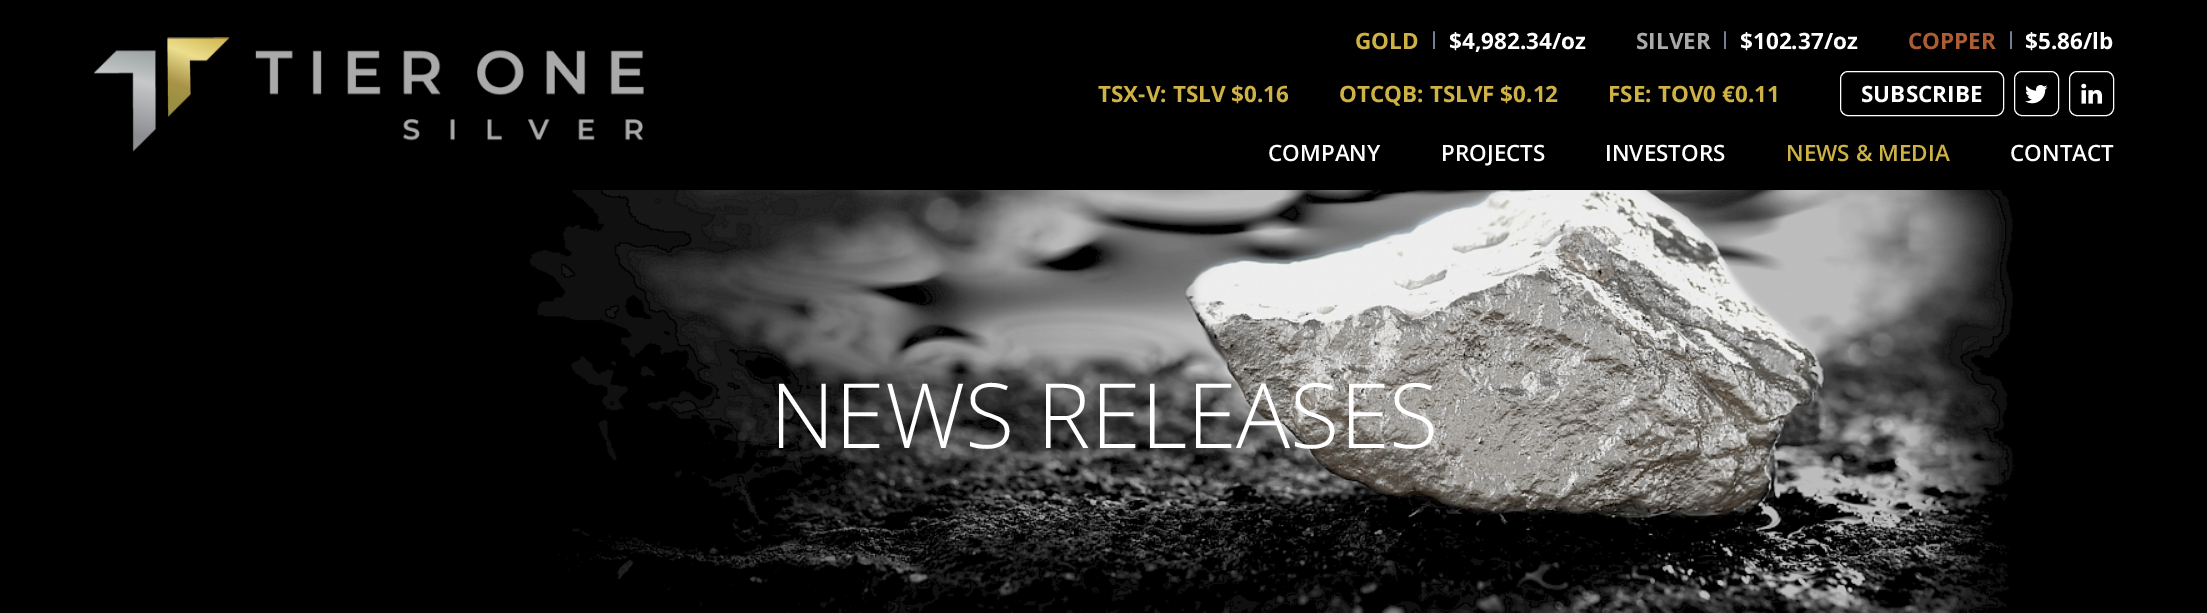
%!PS
<< /PageSize [2207 613] >> setpagedevice
/st/stroke load def
/co { dup -16 bitshift 255 div exch dup -8 bitshift 255 and 255 div exch 255 and 255 div setrgbcolor } def
/fn { [ exch dup neg 0 0 3 -1 roll 0 0 ] selectfont } def
/tx { co fn moveto show } def
/bx { co rectfill } def
/rr { 5 dict begin { /r /h /w /y /x } { exch def } forall
  x r add y moveto x w add y 2 copy h add r arct x w add y h add x 1 index r arct
  x y h add x y r arct x y 2 copy exch w add exch r arct closepath end } def
/im { 5 dict begin { /h /w /y /x /name } { exch def } forall
  gsave x y translate w h scale
  w h 8 [w 0 0 h 0 0] name (r) file false 3 colorimage grestore end } def
0 613 translate 1 -1 scale
4 setmiterlimit
0 0 2207 613 16#000000 bx
(media/1.raw) 94 37 550 115 im
16#FFFFFF co
1840.5 71.5 163 44 7.5 rr st
2014.5 71.5 44 44 7.5 rr st
(media/2.raw) 2025 85 23 19 im
2069.5 71.5 44 44 7.5 rr st
(media/3.raw) 2081 83 22 21 im
(media/4.raw) 530 190 1485 423 im
(GOLD) 1355 49 /OpenSans-Bold 22.5 16#CFB246 tx
(|) 1429 45 /OpenSans-Bold 18 16#718096 tx
($4,982.34/oz) 1449 49 /OpenSans-Bold 22.5 16#FFFFFF tx
(SILVER) 1636 49 /OpenSans-Bold 22.5 16#ABAAAB tx
(|) 1720 45 /OpenSans-Bold 18 16#718096 tx
($102.37/oz) 1740 49 /OpenSans-Bold 22.5 16#FFFFFF tx
(COPPER) 1908 49 /OpenSans-Bold 22.5 16#AC5D35 tx
(|) 2006 45 /OpenSans-Bold 18 16#718096 tx
($5.86/lb) 2025 49 /OpenSans-Bold 22.5 16#FFFFFF tx
(TSX-V: TSLV $0.16) 1098 102 /OpenSans-Bold 22.5 16#CFB246 tx
(OTCQB: TSLVF $0.12) 1339 102 /OpenSans-Bold 22.5 16#CFB246 tx
(FSE: TOV0 €0.11) 1608 102 /OpenSans-Bold 22.5 16#CFB246 tx
(SUBSCRIBE) 1861 102 /OpenSans-Bold 22.5 16#FFFFFF tx
(COMPANY) 1268 161 /OpenSans-SemiBold 22.5 16#FFFFFF tx
(PROJECTS) 1441 161 /OpenSans-SemiBold 22.5 16#FFFFFF tx
(INVESTORS) 1605 161 /OpenSans-SemiBold 22.5 16#FFFFFF tx
(NEWS & MEDIA) 1786 161 /OpenSans-SemiBold 22.5 16#CFB246 tx
(CONTACT) 2010 161 /OpenSans-SemiBold 22.5 16#FFFFFF tx
(NEWS RELEASES) 770 448 /OpenSans-Light 90 16#FFFFFF tx
showpage
